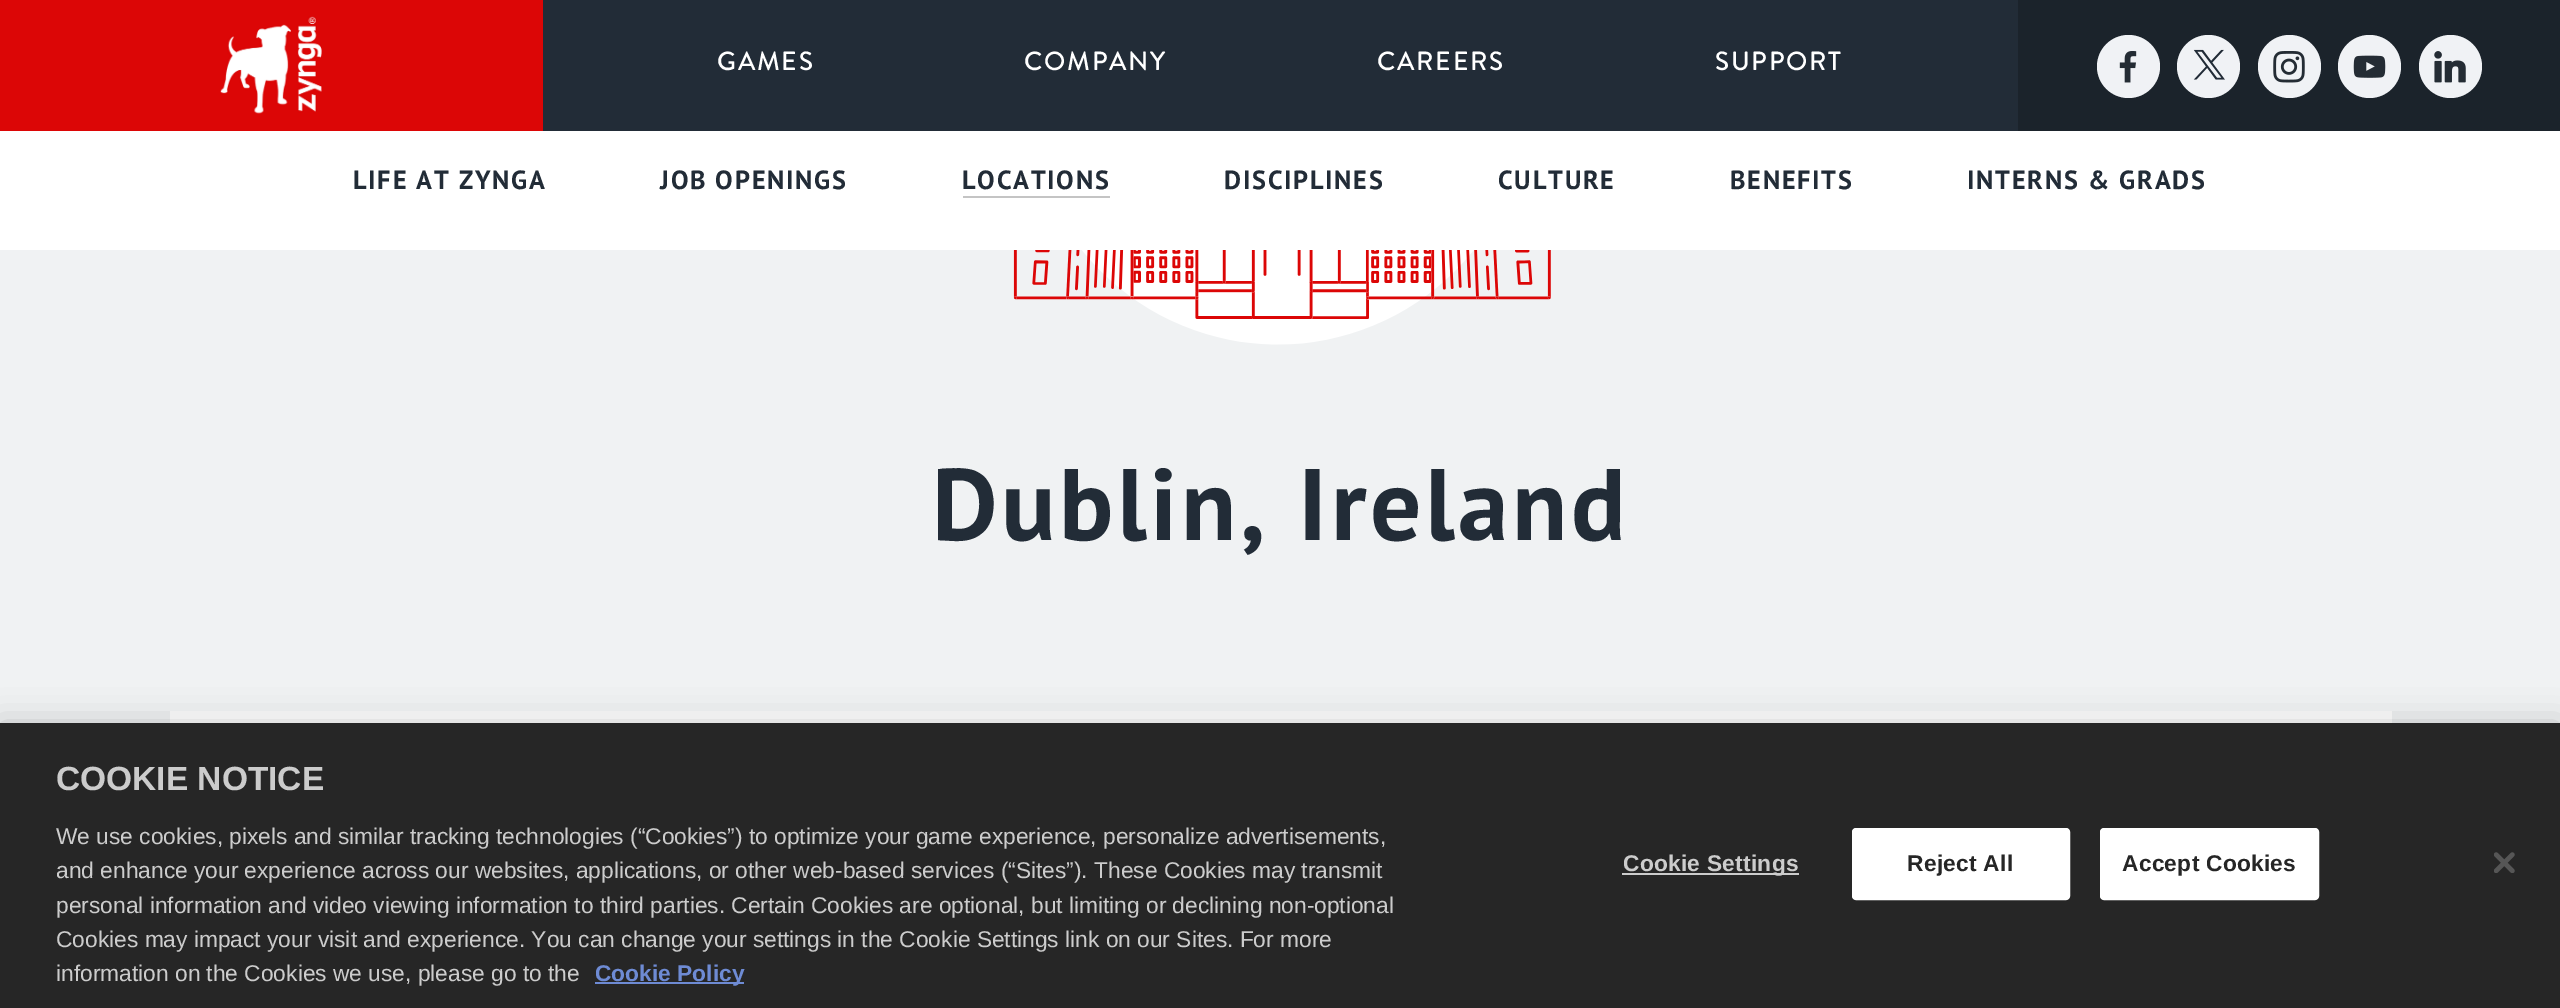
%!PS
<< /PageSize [2560 1008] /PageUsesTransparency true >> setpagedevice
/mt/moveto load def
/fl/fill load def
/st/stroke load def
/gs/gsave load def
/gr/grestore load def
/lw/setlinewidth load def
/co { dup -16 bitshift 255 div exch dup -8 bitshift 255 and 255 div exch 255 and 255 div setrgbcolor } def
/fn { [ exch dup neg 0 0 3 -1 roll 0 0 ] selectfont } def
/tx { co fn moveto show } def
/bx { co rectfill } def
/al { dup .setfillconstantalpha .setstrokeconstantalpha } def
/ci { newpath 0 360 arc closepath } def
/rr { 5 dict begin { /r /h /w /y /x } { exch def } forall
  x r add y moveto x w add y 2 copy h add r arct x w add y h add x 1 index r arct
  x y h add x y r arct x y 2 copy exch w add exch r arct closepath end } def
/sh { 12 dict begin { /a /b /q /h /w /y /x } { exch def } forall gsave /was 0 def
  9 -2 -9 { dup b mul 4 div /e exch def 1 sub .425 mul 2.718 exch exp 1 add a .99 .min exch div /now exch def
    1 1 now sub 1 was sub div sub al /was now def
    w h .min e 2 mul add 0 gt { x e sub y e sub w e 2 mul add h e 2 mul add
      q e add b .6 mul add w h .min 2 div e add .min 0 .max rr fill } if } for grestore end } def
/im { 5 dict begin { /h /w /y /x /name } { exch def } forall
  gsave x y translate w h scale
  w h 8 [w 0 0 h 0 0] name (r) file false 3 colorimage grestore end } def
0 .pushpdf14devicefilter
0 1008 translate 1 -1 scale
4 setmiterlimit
0 0 2560 1008 16#F0F2F3 bx
543 0 1475 131 16#222C37 bx
0 0 543 131 16#DC0606 bx
(media/1.raw) 220 16 102 98 im
2018 0 542 131 16#1B232B bx
16#F0F2F5 co
2128.5 66.5 31.5 ci fl
(media/2.raw) 2119 51 18 32 im
2208.5 66.5 31.5 ci fl
(media/3.raw) 2193 49 32 31 im
2289.5 66.5 31.5 ci fl
(media/4.raw) 2273 51 32 32 im
2369.5 66.5 31.5 ci fl
(media/5.raw) 2353 55 33 23 im
2450.5 66.5 31.5 ci fl
(media/6.raw) 2434 51 32 32 im
0 131 2560 119 16#FFFFFF bx
963 196 147 2 16#C4C4C4 bx
(media/7.raw) 1013 250 538 95 im
170 711 2222 12 16#FFFFFF bx
16#000000 co
0 723 2560 285 0 16 .2 sh
0 723 2560 285 16#262626 bx
595 982 149 2 16#6E8BD4 bx
1622 873 177 2 16#CCCCCC bx
16#FFFFFF co
1853 829 216 70 3 rr gs fl gr
2 lw
st
2101 829 217 70 3 rr gs fl gr
st
(media/8.raw) 2494 852 21 21 im
/BrandonGrotesque-Medium 26.25 fn
717 70 mt 1.75 0 (GAMES) ashow
1024 70 mt 1.75 0 (COMPANY) ashow
1377 70 mt 1.75 0 (CAREERS) ashow
1715 70 mt 1.75 0 (SUPPORT) ashow
/PTSans-Bold 26.25 fn
16#222C37 co
353 189 mt 1.75 0 (LIFE AT ZYNGA) ashow
660 189 mt 1.75 0 (JOB OPENINGS) ashow
962 189 mt 1.75 0 (LOCATIONS) ashow
1224 189 mt 1.75 0 (DISCIPLINES) ashow
1498 189 mt 1.75 0 (CULTURE) ashow
1730 189 mt 1.75 0 (BENEFITS) ashow
1967 189 mt 1.75 0 (INTERNS & GRADS) ashow
/PTSans-Bold 101.5 fn
932 540 mt 3.5 0 (Dublin, Ireland) ashow
(COOKIE NOTICE) 56 790 /LiberationSans-Bold 33.5 16#CCCCCC tx
(We use cookies, pixels and similar tracking technologies \(“Cookies”\) to optimize your game experience, personalize advertisements,) 56 844 /LiberationSans-Regular 22.75 16#CCCCCC tx
(and enhance your experience across our websites, applications, or other web-based services \(“Sites”\). These Cookies may transmit) 56 878 /LiberationSans-Regular 22.75 16#CCCCCC tx
(personal information and video viewing information to third parties. Certain Cookies are optional, but limiting or declining non-optional) 56 913 /LiberationSans-Regular 22.75 16#CCCCCC tx
(Cookies may impact your visit and experience. You can change your settings in the Cookie Settings link on our Sites. For more) 56 947 /LiberationSans-Regular 22.75 16#CCCCCC tx
(information on the Cookies we use, please go to the) 56 981 /LiberationSans-Regular 22.75 16#CCCCCC tx
(Cookie Policy) 595 981 /LiberationSans-Bold 22.75 16#6E8BD4 tx
16#CCCCCC co
1623 871 mt .25 0 (Cookie Settings) ashow
16#262626 co
1907 871 mt .25 0 (Reject All) ashow
2122 871 mt .25 0 (Accept Cookies) ashow
.poppdf14devicefilter showpage
